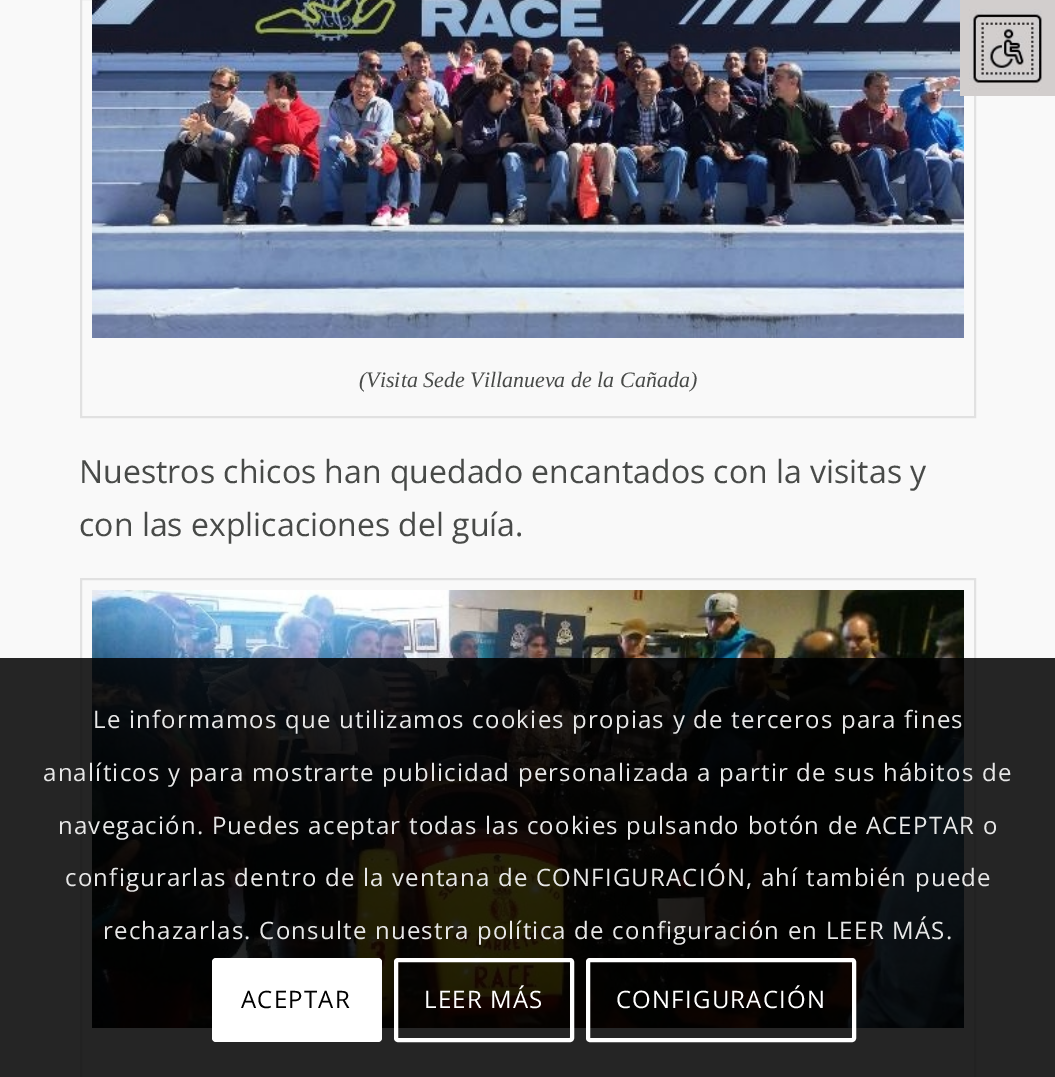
%!PS
<< /PageSize [1055 1077] /PageUsesTransparency true >> setpagedevice
/mt/moveto load def
/fl/fill load def
/st/stroke load def
/lw/setlinewidth load def
/co { dup -16 bitshift 255 div exch dup -8 bitshift 255 and 255 div exch 255 and 255 div setrgbcolor } def
/fn { [ exch dup neg 0 0 3 -1 roll 0 0 ] selectfont } def
/tx { co fn moveto show } def
/bx { co rectfill } def
/al { dup .setfillconstantalpha .setstrokeconstantalpha } def
/rr { 5 dict begin { /r /h /w /y /x } { exch def } forall
  x r add y moveto x w add y 2 copy h add r arct x w add y h add x 1 index r arct
  x y h add x y r arct x y 2 copy exch w add exch r arct closepath end } def
/im { 5 dict begin { /h /w /y /x /name } { exch def } forall
  gsave x y translate w h scale
  w h 8 [w 0 0 h 0 0] name (r) file false 3 colorimage grestore end } def
0 .pushpdf14devicefilter
0 1077 translate 1 -1 scale
4 setmiterlimit
0 0 1055 1077 16#F9F9F9 bx
16#E1E1E1 co
2 lw
81 -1 894 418 rectstroke
(media/2.raw) 92 0 872 338 im
(media/1.raw) 960 0 95 96 im
81 579 894 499 rectstroke
(media/3.raw) 92 590 872 438 im
0.85 al
0 658 1055 419 16#000000 bx
1 al
16#FFFFFF co
212 958 170 84 4 rr fl
4 lw
396 960 176 80 2 rr st
588 960 266 80 2 rr st
(\(Visita Sede Villanueva de la Cañada\)) 359 387 /LiberationSerif-Italic 22 16#484A48 tx
(Nuestros chicos han quedado encantados con la visitas y) 79 483 /OpenSans-Regular 32 16#484A48 tx
(con las explicaciones del guía.) 79 536 /OpenSans-Regular 32 16#484A48 tx
/OpenSans-Regular 24 fn
16#E7E7E7 co
93 728 mt 1.2 0 (Le informamos que utilizamos cookies propias y de terceros para fines) ashow
43 781 mt 1.2 0 (analíticos y para mostrarte publicidad personalizada a partir de sus hábitos de) ashow
58 834 mt 1.2 0 (navegación. Puedes aceptar todas las cookies pulsando botón de ACEPTAR) ashow
983 834 mt 1.2 0 (o) ashow
65 886 mt 1.2 0 (configurarlas dentro de la ventana de CONFIGURACIÓN, ahí también puede) ashow
103 939 mt 1.2 0 (rechazarlas. Consulte nuestra política de configuración en LEER MÁS.) ashow
16#000000 co
241 1008 mt 1.2 0 (ACEPTAR) ashow
16#FFFFFF co
424 1008 mt 1.2 0 (LEER MÁS) ashow
616 1008 mt 1.2 0 (CONFIGURACIÓN) ashow
.poppdf14devicefilter showpage
